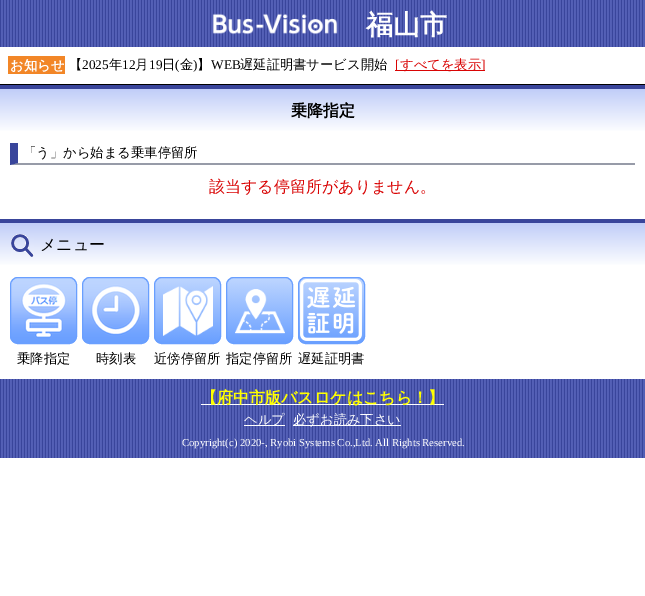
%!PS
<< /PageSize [645 596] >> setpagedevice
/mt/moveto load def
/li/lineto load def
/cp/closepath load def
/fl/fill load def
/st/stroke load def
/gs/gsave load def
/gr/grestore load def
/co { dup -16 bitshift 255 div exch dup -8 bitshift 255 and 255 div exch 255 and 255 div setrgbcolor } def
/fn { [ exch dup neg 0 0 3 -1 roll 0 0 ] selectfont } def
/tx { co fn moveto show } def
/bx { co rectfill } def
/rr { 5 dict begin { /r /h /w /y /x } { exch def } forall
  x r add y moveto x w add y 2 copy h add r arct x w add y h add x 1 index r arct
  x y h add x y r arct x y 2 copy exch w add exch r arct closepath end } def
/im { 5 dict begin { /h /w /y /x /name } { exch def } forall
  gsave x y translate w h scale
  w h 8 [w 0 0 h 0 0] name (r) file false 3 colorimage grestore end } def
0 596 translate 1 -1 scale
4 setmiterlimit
0 0 645 596 16#FFFFFF bx
(media/1.raw) 0 0 645 47 im
(media/2.raw) 212 13 126 22 im
0 84 645 1 16#000000 bx
8 56 57 18 16#F28627 bx
395 70 90 1 16#D90404 bx
gs 0 89 mt 645 89 li 645 131 li 0 131 li cp clip newpath
<< /ShadingType 2 /ColorSpace /DeviceRGB /Coords [0 89 0 133] /Extend [true true] /Function << /FunctionType 2 /Domain [0 1] /C0 [.753 .804 .973] /C1 [1 1 1] /N 1 >> >> shfill gr
0 85 645 4 16#39459B bx
16#979BA8 co
635 165 mt 10 165 li 18 163 li 635 163 li cp fl
16#39459B co
10 165 mt 10 143 li 18 143 li 18 163 li cp fl
gs 0 223 mt 645 223 li 645 265 li 0 265 li cp clip newpath
<< /ShadingType 2 /ColorSpace /DeviceRGB /Coords [0 223 0 267] /Extend [true true] /Function << /FunctionType 2 /Domain [0 1] /C0 [.753 .804 .973] /C1 [1 1 1] /N 1 >> >> shfill gr
0 219 645 4 16#39459B bx
(media/3.raw) 11 234 23 23 im
(media/4.raw) 10 277 67 67 im
16#699FFF co
10.5 277.5 66 66 7.5 rr st
(media/5.raw) 82 277 67 67 im
82.5 277.5 66 66 7.5 rr st
(media/6.raw) 154 277 67 67 im
154.5 277.5 66 66 7.5 rr st
(media/7.raw) 226 277 67 67 im
226.5 277.5 66 66 7.5 rr st
(media/8.raw) 298 277 67 67 im
298.5 277.5 66 66 7.5 rr st
(media/9.raw) 0 379 645 79 im
201 404 243 1 16#FFFFFF bx
244 425 41 1 16#FFFFFF bx
293 425 108 1 16#FFFFFF bx
(福山市) 366 34 /WenQuanYiZenHei-Bold 27 16#FFFFFF tx
(お知らせ) 10 70 /WenQuanYiZenHei-Bold 13.3 16#FFFFFF tx
(【) 69 69 /WenQuanYiZenHei-Medium 13.3 16#000000 tx
(2025) 82 69 /LiberationSerif-Regular 13.3 16#000000 tx
(年) 109 69 /WenQuanYiZenHei-Medium 13.3 16#000000 tx
(12) 122 69 /LiberationSerif-Regular 13.3 16#000000 tx
(月) 135 69 /WenQuanYiZenHei-Medium 13.3 16#000000 tx
(19) 149 69 /LiberationSerif-Regular 13.3 16#000000 tx
(日) 162 69 /WenQuanYiZenHei-Medium 13.3 16#000000 tx
(\() 175 69 /LiberationSerif-Regular 13.3 16#000000 tx
(金) 180 69 /WenQuanYiZenHei-Medium 13.3 16#000000 tx
(\)) 193 69 /LiberationSerif-Regular 13.3 16#000000 tx
(】) 197 69 /WenQuanYiZenHei-Medium 13.3 16#000000 tx
(WEB) 211 69 /LiberationSerif-Regular 13.3 16#000000 tx
(遅延証明書サービス開始) 240 69 /WenQuanYiZenHei-Medium 13.3 16#000000 tx
([) 395 69 /LiberationSerif-Regular 13.3 16#D90404 tx
(すべてを表示) 400 69 /WenQuanYiZenHei-Medium 13.3 16#D90404 tx
(]) 481 69 /LiberationSerif-Regular 13.3 16#D90404 tx
(乗降指定) 291 116 /WenQuanYiZenHei-Bold 16 16#000000 tx
(「う」から始まる乗車停留所) 23 157 /WenQuanYiZenHei-Medium 13.3 16#000000 tx
(該当する停留所がありません。) 209 192 /WenQuanYiZenHei-Medium 16 16#D90404 tx
(メニュー) 40 250 /WenQuanYiZenHei-Medium 16 16#000000 tx
(乗降指定) 17 363 /WenQuanYiZenHei-Medium 13.3 16#000000 tx
(時刻表) 96 363 /WenQuanYiZenHei-Medium 13.3 16#000000 tx
(近傍停留所) 154 363 /WenQuanYiZenHei-Medium 13.3 16#000000 tx
(指定停留所) 226 363 /WenQuanYiZenHei-Medium 13.3 16#000000 tx
(遅延証明書) 298 363 /WenQuanYiZenHei-Medium 13.3 16#000000 tx
(【府中市版バスロケはこちら！】) 201 403 /WenQuanYiZenHei-Bold 16 16#FFFF00 tx
(ヘルプ) 244 424 /WenQuanYiZenHei-Medium 13.3 16#FFFFFF tx
(必ずお読み下さい) 293 424 /WenQuanYiZenHei-Medium 13.3 16#FFFFFF tx
(Copyright\(c\) 2020-, Ryobi Systems Co.,Ltd. All Rights Reserved.) 182 446 /LiberationSerif-Regular 10.7 16#FFFFFF tx
showpage
